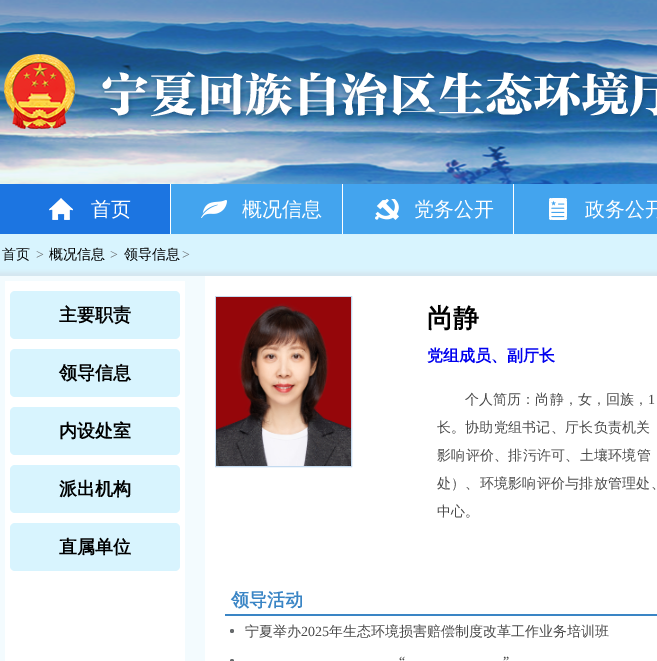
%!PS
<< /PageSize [657 661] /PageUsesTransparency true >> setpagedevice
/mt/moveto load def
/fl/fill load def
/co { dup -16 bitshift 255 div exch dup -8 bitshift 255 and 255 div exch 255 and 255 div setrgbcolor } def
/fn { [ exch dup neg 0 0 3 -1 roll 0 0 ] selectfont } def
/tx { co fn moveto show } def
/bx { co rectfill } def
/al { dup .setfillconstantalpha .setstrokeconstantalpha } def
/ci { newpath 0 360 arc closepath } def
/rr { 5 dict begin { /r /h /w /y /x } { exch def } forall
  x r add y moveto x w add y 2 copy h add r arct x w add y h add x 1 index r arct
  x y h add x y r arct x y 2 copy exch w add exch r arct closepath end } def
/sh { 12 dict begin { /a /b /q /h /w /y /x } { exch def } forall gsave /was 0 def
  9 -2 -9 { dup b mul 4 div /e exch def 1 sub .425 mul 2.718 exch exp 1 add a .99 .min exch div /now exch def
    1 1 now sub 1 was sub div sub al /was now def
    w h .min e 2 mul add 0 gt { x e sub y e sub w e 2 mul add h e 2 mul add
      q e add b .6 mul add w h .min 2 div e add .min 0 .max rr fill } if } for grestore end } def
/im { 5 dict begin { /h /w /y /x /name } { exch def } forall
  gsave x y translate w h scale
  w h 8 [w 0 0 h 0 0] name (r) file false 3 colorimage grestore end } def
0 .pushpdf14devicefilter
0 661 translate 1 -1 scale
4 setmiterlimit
0 0 657 661 16#D8F4FE bx
(media/1.raw) 0 0 657 235 im
(media/2.raw) 4 54 653 75 im
170 184 1 50 16#FFFFFF bx
0 184 170 50 16#1C75E1 bx
(media/3.raw) 49 198 24 22 im
171 184 171 50 16#43A4EE bx
342 184 1 50 16#FFFFFF bx
(media/4.raw) 201 200 26 18 im
343 184 170 50 16#43A4EE bx
513 184 1 50 16#FFFFFF bx
(media/5.raw) 375 199 24 21 im
514 184 143 50 16#43A4EE bx
(media/6.raw) 549 198 18 22 im
16#D4E6EF co
-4 272 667 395 0 2 1 sh
0 276 205 385 16#F3FBFE bx
5 281 180 380 16#FFFFFF bx
16#D8F4FE co
10 291 170 48 5 rr fl
10 349 170 48 5 rr fl
10 407 170 48 5 rr fl
10 465 170 48 5 rr fl
10 523 170 48 5 rr fl
205 276 452 385 16#FFFFFF bx
16#C4DAEF co
215.5 296.5 136 170 rectstroke
(media/7.raw) 216 297 135 169 im
225 614 432 2 16#3A85C5 bx
16#676A6C co
232 631 2 ci fl
232 661 2 ci fl
(首页) 91 216 /WenQuanYiZenHei-Medium 20 16#FFFFFF tx
(概况信息) 242 216 /WenQuanYiZenHei-Medium 20 16#FFFFFF tx
(党务公开) 414 216 /WenQuanYiZenHei-Medium 20 16#FFFFFF tx
(政务公开) 585 216 /WenQuanYiZenHei-Medium 20 16#FFFFFF tx
(首页) 2 259 /WenQuanYiZenHei-Medium 14 16#000000 tx
(>) 36 259 /LiberationSerif-Regular 14 16#676A6C tx
(概况信息) 49 259 /WenQuanYiZenHei-Medium 14 16#000000 tx
(>) 110 259 /LiberationSerif-Regular 14 16#676A6C tx
(领导信息) 124 259 /WenQuanYiZenHei-Medium 14 16#000000 tx
(>) 182 259 /LiberationSerif-Regular 14 16#676A6C tx
(主要职责) 59 321 /WenQuanYiZenHei-Bold 18 16#000000 tx
(领导信息) 59 379 /WenQuanYiZenHei-Bold 18 16#000000 tx
(内设处室) 59 437 /WenQuanYiZenHei-Bold 18 16#000000 tx
(派出机构) 59 495 /WenQuanYiZenHei-Bold 18 16#000000 tx
(直属单位) 59 553 /WenQuanYiZenHei-Bold 18 16#000000 tx
(尚静) 427 327 /WenQuanYiZenHei-Bold 26 16#000000 tx
(党组成员、副厅长) 427 361 /WenQuanYiZenHei-Bold 16 16#0000EE tx
/WenQuanYiZenHei-Medium 14 fn
16#494949 co
465 404 mt .1 0 (个人简历：尚静，女，回族，) ashow
/LiberationSerif-Regular 14 fn
648 404 mt .1 0 (1) ashow
(长。) 437 432 /WenQuanYiZenHei-Medium 14 16#494949 tx
465 432 mt .25 0 (协助党组书记) ashow
(、) 551 432 /WenQuanYiZenHei-Medium 14 16#494949 tx
565 432 mt .25 0 (厅长负责机关) ashow
437 460 mt .25 0 (影响评价、排污许可、土壤环境管) ashow
(处）) 437 488 /WenQuanYiZenHei-Medium 14 16#494949 tx
465 488 mt .5 0 (、环境) ashow
508 488 mt .25 0 (影响评价与排放管理处、) ashow
(中心。) 437 516 /WenQuanYiZenHei-Medium 14 16#494949 tx
(领导活动) 231 606 /WenQuanYiZenHei-Bold 18 16#3A85C5 tx
(宁夏举办) 245 636 /WenQuanYiZenHei-Medium 14 16#494949 tx
(2025) 301 636 /LiberationSerif-Regular 14 16#494949 tx
(年生态环境损害赔偿制度改革工作业务培训班) 329 636 /WenQuanYiZenHei-Medium 14 16#494949 tx
(“) 399 666 /LiberationSerif-Regular 14 16#494949 tx
(”) 503 666 /LiberationSerif-Regular 14 16#494949 tx
.poppdf14devicefilter showpage
